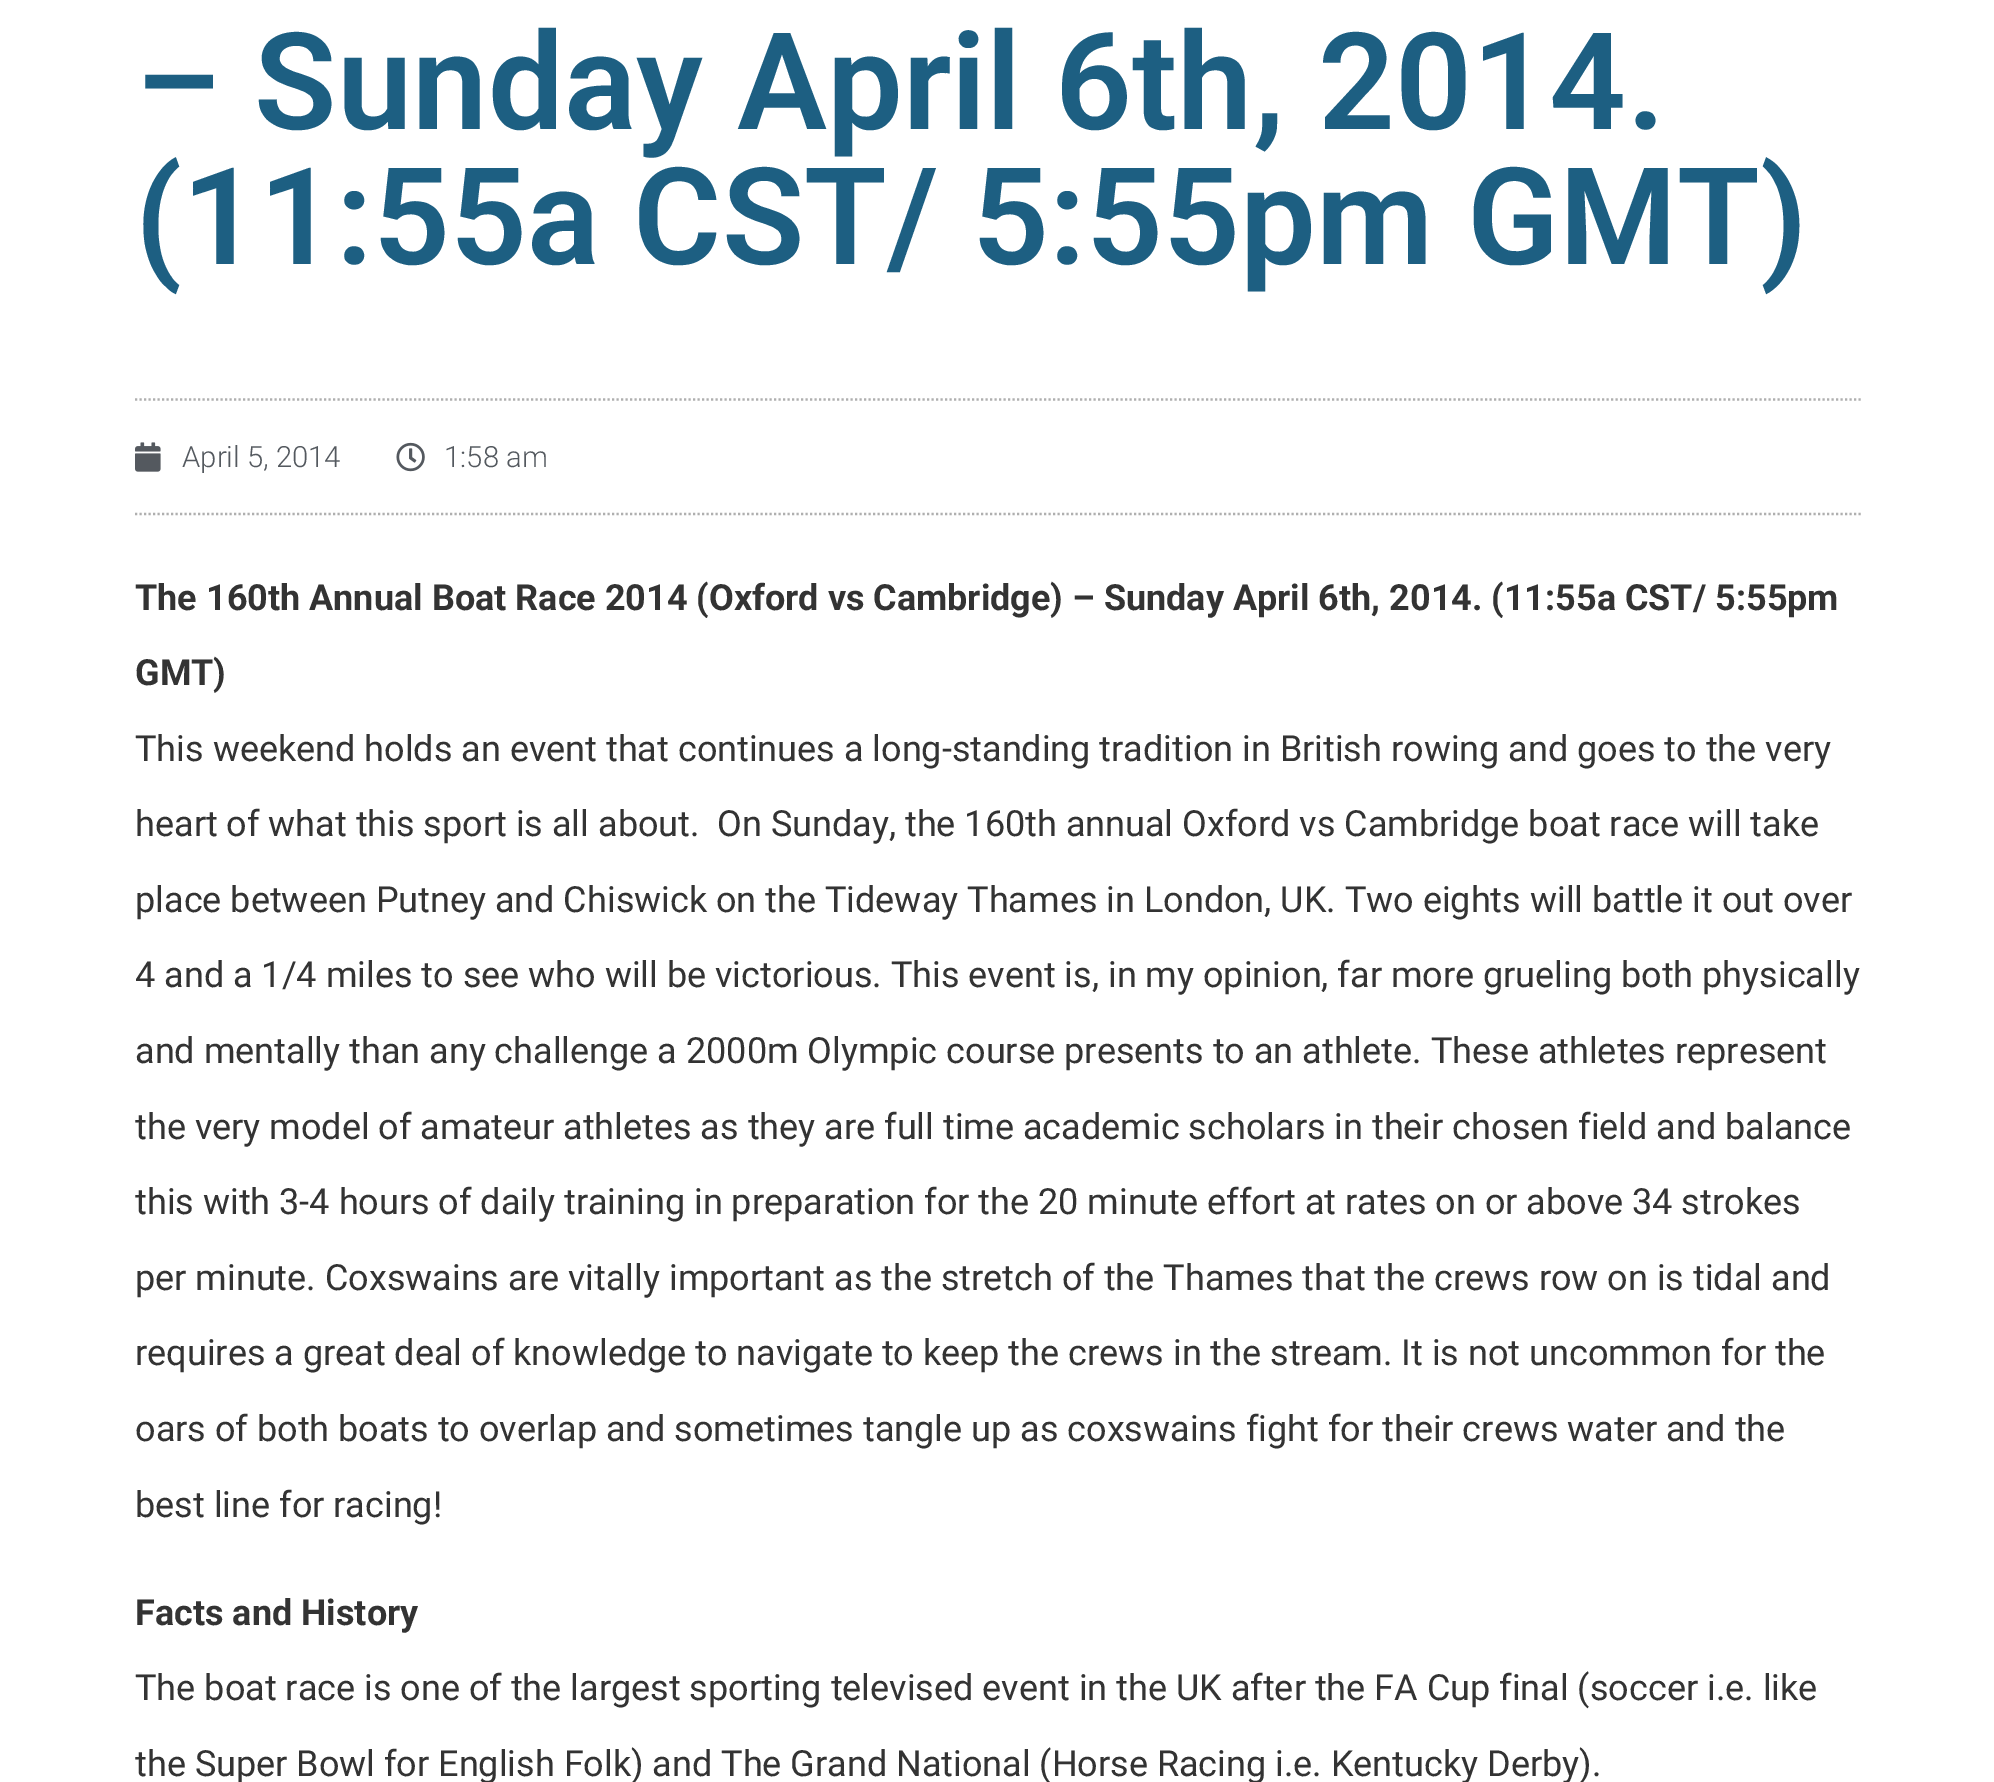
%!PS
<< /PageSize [1994 1782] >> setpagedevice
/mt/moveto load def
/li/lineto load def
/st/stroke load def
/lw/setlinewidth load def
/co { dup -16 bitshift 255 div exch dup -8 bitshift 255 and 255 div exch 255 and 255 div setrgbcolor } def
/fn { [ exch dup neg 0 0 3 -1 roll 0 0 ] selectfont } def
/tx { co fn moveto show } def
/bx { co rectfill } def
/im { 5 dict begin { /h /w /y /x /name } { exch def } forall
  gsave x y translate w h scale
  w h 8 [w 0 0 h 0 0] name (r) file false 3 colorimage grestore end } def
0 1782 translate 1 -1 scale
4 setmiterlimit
0 0 1994 1782 16#FFFFFF bx
16#AFAFAF co
2.2 lw
[2.25 2.25] 0 setdash
135 399.5 mt 1861 399.5 li st
135 514 mt 1861 514 li st
(media/1.raw) 135 442 26 30 im
(media/2.raw) 396 442 29 30 im
(– Sunday April 6th, 2014.) 135 129 /Roboto-SemiBold 135 16#1D5F82 tx
(\(11:55a CST/ 5:55pm GMT\)) 135 264 /Roboto-SemiBold 135 16#1D5F82 tx
(April 5, 2014) 182 467 /Roboto-Light 29.25 16#54595F tx
(1:58 am) 444 467 /Roboto-Light 29.25 16#54595F tx
(The 160th Annual Boat Race 2014 \(Oxford vs Cambridge\) – Sunday April 6th, 2014. \(11:55a CST/ 5:55pm) 135 610 /Roboto-Bold 36 16#333333 tx
(GMT\)) 135 685 /Roboto-Bold 36 16#333333 tx
(This weekend holds an event that continues a long-standing tradition in British rowing and goes to the very) 135 761 /Roboto-Regular 36 16#333333 tx
(heart of what this sport is all about.  On Sunday, the 160th annual Oxford vs Cambridge boat race will take) 135 836 /Roboto-Regular 36 16#333333 tx
(place between Putney and Chiswick on the Tideway Thames in London, UK. Two eights will battle it out over) 135 912 /Roboto-Regular 36 16#333333 tx
(4 and a 1/4 miles to see who will be victorious. This event is, in my opinion, far more grueling both physically) 135 987 /Roboto-Regular 36 16#333333 tx
(and mentally than any challenge a 2000m Olympic course presents to an athlete. These athletes represent) 135 1063 /Roboto-Regular 36 16#333333 tx
(the very model of amateur athletes as they are full time academic scholars in their chosen field and balance) 135 1139 /Roboto-Regular 36 16#333333 tx
(this with 3-4 hours of daily training in preparation for the 20 minute effort at rates on or above 34 strokes) 135 1214 /Roboto-Regular 36 16#333333 tx
(per minute. Coxswains are vitally important as the stretch of the Thames that the crews row on is tidal and) 135 1290 /Roboto-Regular 36 16#333333 tx
(requires a great deal of knowledge to navigate to keep the crews in the stream. It is not uncommon for the) 135 1365 /Roboto-Regular 36 16#333333 tx
(oars of both boats to overlap and sometimes tangle up as coxswains fight for their crews water and the) 135 1441 /Roboto-Regular 36 16#333333 tx
(best line for racing!) 135 1517 /Roboto-Regular 36 16#333333 tx
(Facts and History) 135 1625 /Roboto-Bold 36 16#333333 tx
(The boat race is one of the largest sporting televised event in the UK after the FA Cup final \(soccer i.e. like) 135 1700 /Roboto-Regular 36 16#333333 tx
(the Super Bowl for English Folk\) and The Grand National \(Horse Racing i.e. Kentucky Derby\).) 135 1776 /Roboto-Regular 36 16#333333 tx
showpage
